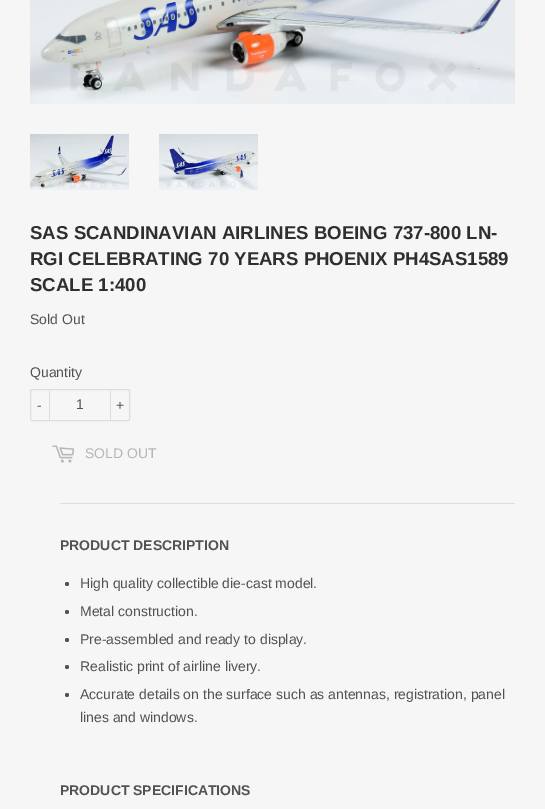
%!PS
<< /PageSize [545 809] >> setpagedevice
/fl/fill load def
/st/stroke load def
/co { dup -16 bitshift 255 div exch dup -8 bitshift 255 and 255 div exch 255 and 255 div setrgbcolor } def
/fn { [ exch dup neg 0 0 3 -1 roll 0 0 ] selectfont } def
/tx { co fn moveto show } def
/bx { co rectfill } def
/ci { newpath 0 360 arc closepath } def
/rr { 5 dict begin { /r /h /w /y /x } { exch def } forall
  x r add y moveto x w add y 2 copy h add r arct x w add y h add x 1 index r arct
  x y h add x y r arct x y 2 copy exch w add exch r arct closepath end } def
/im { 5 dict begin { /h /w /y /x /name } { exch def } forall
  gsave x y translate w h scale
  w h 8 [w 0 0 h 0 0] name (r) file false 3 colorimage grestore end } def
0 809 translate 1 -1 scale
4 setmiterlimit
0 0 545 809 16#F6F6F6 bx
(media/1.raw) 30 0 485 104 im
(media/2.raw) 30 134 99 56 im
(media/3.raw) 159 134 99 56 im
16#DEDEDE co
30.5 389.5 99 31 1.5 rr st
49 389 1 32 16#DEDEDE bx
110 389 1 32 16#DEDEDE bx
(media/4.raw) 52 445 23 18 im
60 503 455 1 16#DEDEDE bx
16#535252 co
67 584 2 ci fl
67 612 2 ci fl
67 640 2 ci fl
67 667 2 ci fl
67 695 2 ci fl
(SAS SCANDINAVIAN AIRLINES BOEING 737-800 LN-) 30 239 /LiberationSans-Bold 18.65 16#2F2F2F tx
(RGI CELEBRATING 70 YEARS PHOENIX PH4SAS1589) 30 265 /LiberationSans-Bold 18.65 16#2F2F2F tx
(SCALE 1:400) 30 291 /LiberationSans-Bold 18.65 16#2F2F2F tx
(Sold Out) 30 324 /LiberationSans-Regular 14 16#535252 tx
(Quantity) 30 377 /LiberationSans-Regular 14 16#535252 tx
(-) 37 410 /LiberationSans-Regular 14 16#535252 tx
(1) 76 409 /LiberationSans-Regular 14 16#535252 tx
(+) 116 410 /LiberationSans-Regular 14 16#535252 tx
(SOLD OUT) 85 458 /LiberationSans-Regular 14 16#B6B6B6 tx
(PRODUCT DESCRIPTION) 60 550 /LiberationSans-Bold 14 16#535252 tx
(High quality collectible die-cast model.) 80 588 /LiberationSans-Regular 14 16#535252 tx
(Metal construction.) 80 616 /LiberationSans-Regular 14 16#535252 tx
(Pre-assembled and ready to display.) 80 644 /LiberationSans-Regular 14 16#535252 tx
(Realistic print of airline livery.) 80 671 /LiberationSans-Regular 14 16#535252 tx
(Accurate details on the surface such as antennas, registration, panel) 80 699 /LiberationSans-Regular 14 16#535252 tx
(lines and windows.) 80 722 /LiberationSans-Regular 14 16#535252 tx
(PRODUCT SPECIFICATIONS) 60 795 /LiberationSans-Bold 14 16#535252 tx
showpage
